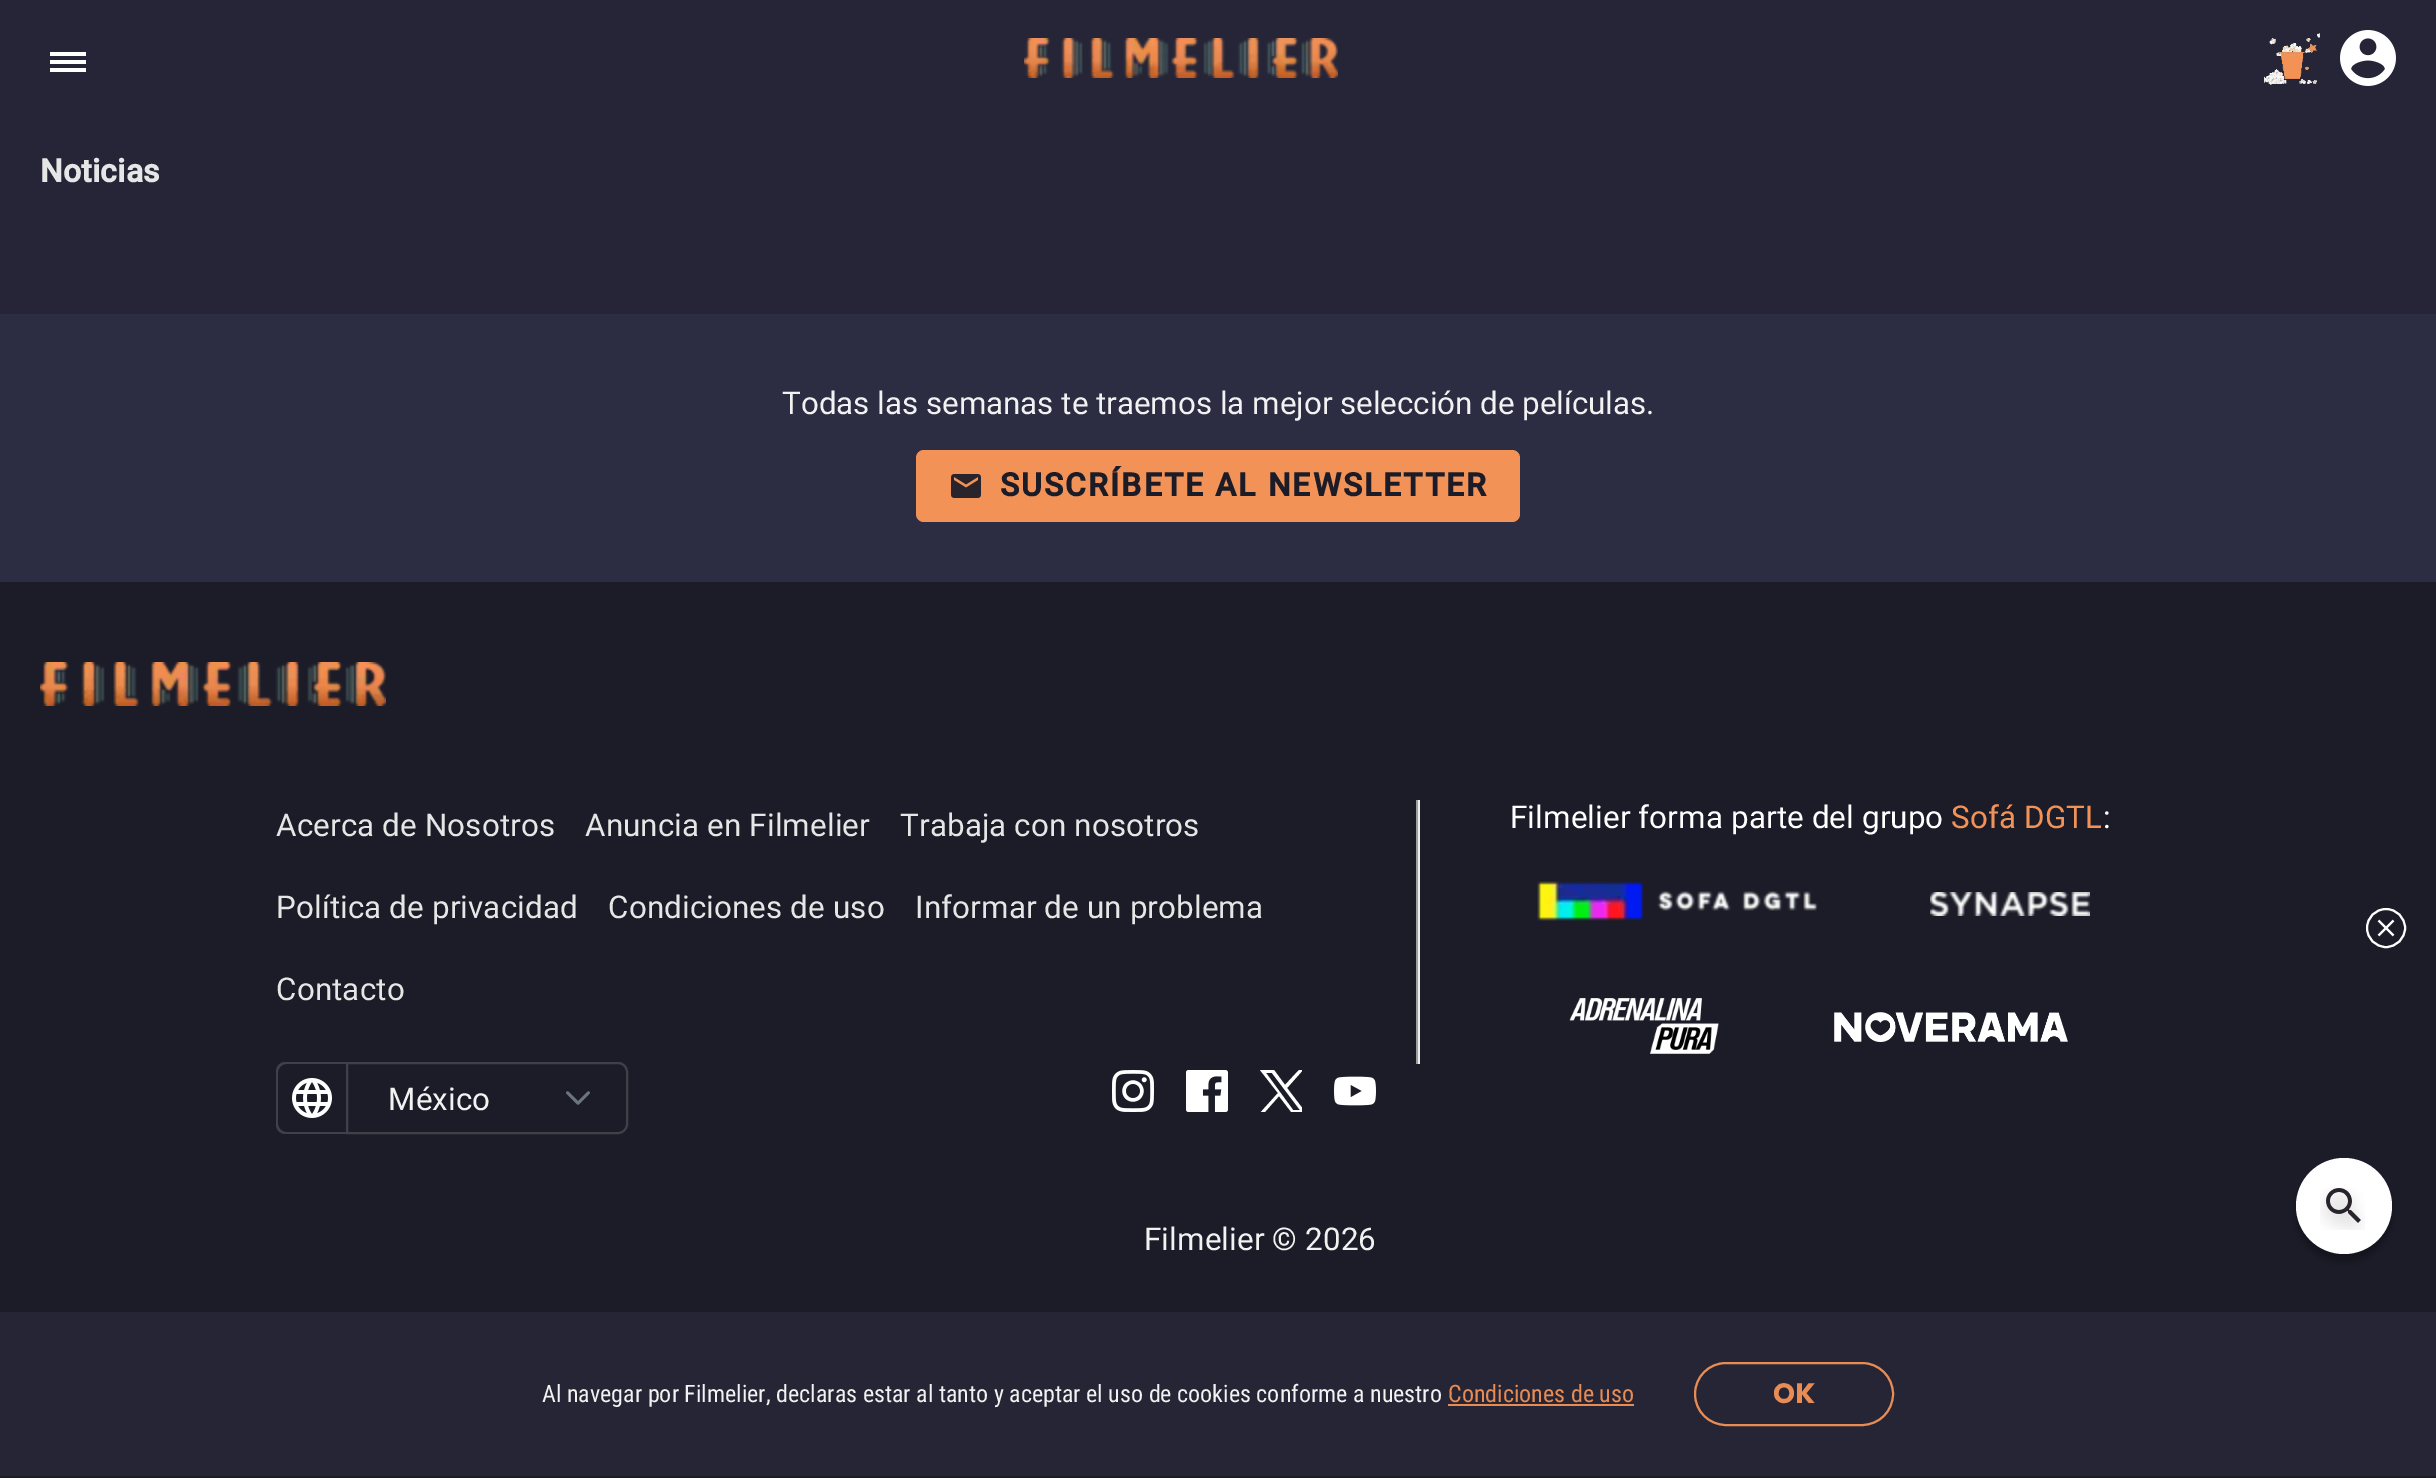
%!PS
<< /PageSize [2436 1478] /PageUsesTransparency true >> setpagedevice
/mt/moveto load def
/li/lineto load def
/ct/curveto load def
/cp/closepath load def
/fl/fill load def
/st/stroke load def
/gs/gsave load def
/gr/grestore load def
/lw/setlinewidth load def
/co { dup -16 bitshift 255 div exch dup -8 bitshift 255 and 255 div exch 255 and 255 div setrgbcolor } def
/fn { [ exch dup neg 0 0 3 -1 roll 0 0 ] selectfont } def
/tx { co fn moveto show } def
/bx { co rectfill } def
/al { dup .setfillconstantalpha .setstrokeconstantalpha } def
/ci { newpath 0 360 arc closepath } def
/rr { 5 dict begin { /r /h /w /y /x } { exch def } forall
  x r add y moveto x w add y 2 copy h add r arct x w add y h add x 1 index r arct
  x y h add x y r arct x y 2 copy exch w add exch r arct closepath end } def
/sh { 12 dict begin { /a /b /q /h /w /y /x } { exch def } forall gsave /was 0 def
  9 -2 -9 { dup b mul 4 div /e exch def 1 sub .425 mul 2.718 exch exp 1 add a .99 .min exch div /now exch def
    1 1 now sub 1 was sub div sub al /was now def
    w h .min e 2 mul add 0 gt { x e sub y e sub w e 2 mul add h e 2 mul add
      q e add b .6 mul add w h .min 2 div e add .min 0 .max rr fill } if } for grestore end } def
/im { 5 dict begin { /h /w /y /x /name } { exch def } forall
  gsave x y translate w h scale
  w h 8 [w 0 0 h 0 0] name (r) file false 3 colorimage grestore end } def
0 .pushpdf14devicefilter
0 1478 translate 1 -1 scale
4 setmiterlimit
0 0 2436 1478 16#1C1C28 bx
0 0 2436 314 16#252537 bx
50 60 36 4 16#FFFFFF bx
50 52 36 4 16#FFFFFF bx
50 68 36 4 16#FFFFFF bx
(media/1.raw) 1024 38 314 40 im
(media/2.raw) 2264 33 56 52 im
(media/3.raw) 2340 30 56 56 im
0 314 2436 268 16#2C2D42 bx
16#F39256 co
916 450 604 72 8 rr fl
(media/4.raw) 951 474 30 24 im
(media/5.raw) 40 662 346 44 im
16#414049 co
286 1062 mt 346 1062 li 346 1134 li 286 1134 li 280 1134 276 1130 276 1124 ct 276 1072 li 276 1066 280 1062 286 1062 ct cp 286 1064 mt 346 1064 li 346 1132 li 286 1132 li 282 1132 278 1128 278 1124 ct 278 1072 li 278 1068 282 1064 286 1064 ct cp eofill
(media/6.raw) 292 1078 40 40 im
2 lw
347 1063 mt 618 1063 li 623 1063 627 1067 627 1072 ct 627 1124 li 627 1129 623 1133 618 1133 ct 347 1133 li cp st
(media/7.raw) 566 1091 24 14 im
(media/8.raw) 1112 1070 42 42 im
(media/9.raw) 1186 1070 42 42 im
gs
1260 1070 42 42 rectclip
16#FFFFFF co
1260 1070 mt 1278 1093 li 1260 1113 li 1264 1113 li 1279 1096 li 1292 1113 li 1306 1113 li 1287 1088 li 1303 1070 li 1299 1070 li 1285 1085 li 1274 1070 li cp 1266 1073 mt 1272 1073 li 1300 1110 li 1293 1110 li cp fl
gr
(media/10.raw) 1334 1076 42 30 im
1418 800 2 264 16#EEEEEE bx
1416 1062 4 2 16#EEEEEE bx
1416 800 2 264 16#9F9F9F bx
(media/11.raw) 1537 881 281 40 im
(media/12.raw) 1930 892 160 24 im
(media/13.raw) 1569 998 150 56 im
(media/14.raw) 1834 1012 234 30 im
16#000000 co
2296 1166 96 96 48 4 .3 sh
16#FFFFFF co
2344 1206 48 ci fl
(media/15.raw) 2320 1188 45 42 im
2386 928 19 ci st
(media/16.raw) 2377 919 18 18 im
0 1312 2436 164 16#252536 bx
1448 1404 186 2 16#E88C54 bx
1695 1363 198 62 31 rr st
/Roboto-Bold 32 fn
16#E6E6E6 co
40 182 mt .15 0 (Noticias) ashow
(Todas las semanas te traemos la mejor selección de películas.) 782 414 /Roboto-Regular 32 16#F2F2F2 tx
/Roboto-Bold 32 fn
16#1C1C28 co
1000 496 mt 2 0 (SUSCRÍBETE AL NEWSLETTER) ashow
/Roboto-Regular 32 fn
16#E6E6E6 co
276 836 mt .15 0 (Acerca de Nosotros) ashow
585 836 mt .15 0 (Anuncia en Filmelier) ashow
900 836 mt .15 0 (Trabaja con nosotros) ashow
276 918 mt .15 0 (Política de privacidad) ashow
608 918 mt .15 0 (Condiciones de uso) ashow
915 918 mt .15 0 (Informar de un problema) ashow
276 1000 mt .15 0 (Contacto) ashow
16#F2F2F2 co
388 1110 mt .15 0 (México) ashow
1144 1250 mt .15 0 (Filmelier © 2026) ashow
16#FFFFFF co
1510 828 mt .15 0 (Filmelier forma parte del grupo) ashow
16#F39256 co
1951 828 mt .15 0 (Sofá DGTL) ashow
16#FFFFFF co
2103 828 mt .15 0 (:) ashow
(Al navegar por Filmelier, declaras estar al tanto y aceptar el uso de cookies conforme a nuestro) 542 1402 /RobotoCondensed-Regular 24 16#F2F2F2 tx
(Condiciones de uso) 1448 1402 /RobotoCondensed-Regular 24 16#E88C54 tx
(OK) 1773 1403 /Poppins-Bold 28 16#E88C54 tx
.poppdf14devicefilter showpage
